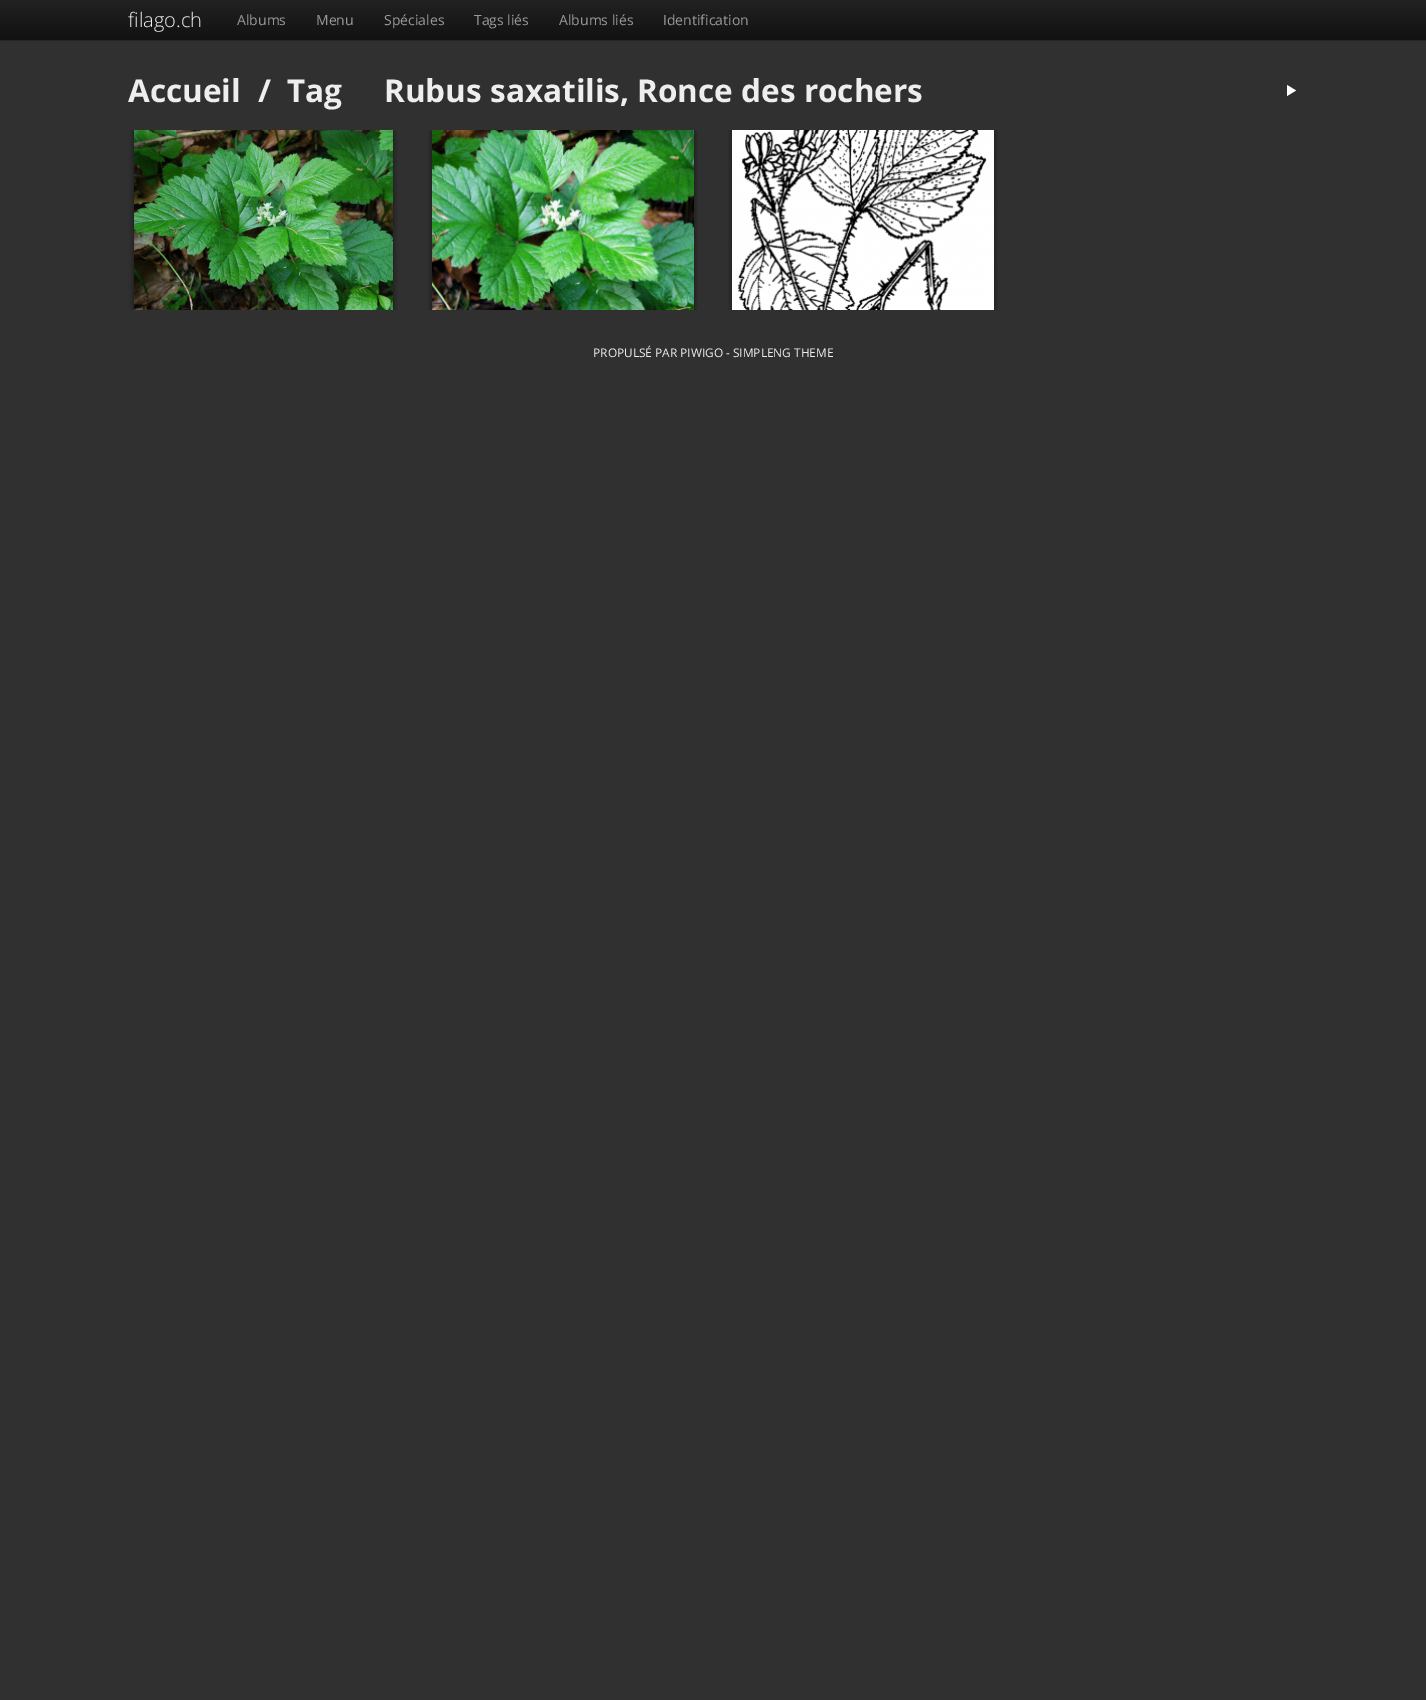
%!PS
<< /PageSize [1426 1700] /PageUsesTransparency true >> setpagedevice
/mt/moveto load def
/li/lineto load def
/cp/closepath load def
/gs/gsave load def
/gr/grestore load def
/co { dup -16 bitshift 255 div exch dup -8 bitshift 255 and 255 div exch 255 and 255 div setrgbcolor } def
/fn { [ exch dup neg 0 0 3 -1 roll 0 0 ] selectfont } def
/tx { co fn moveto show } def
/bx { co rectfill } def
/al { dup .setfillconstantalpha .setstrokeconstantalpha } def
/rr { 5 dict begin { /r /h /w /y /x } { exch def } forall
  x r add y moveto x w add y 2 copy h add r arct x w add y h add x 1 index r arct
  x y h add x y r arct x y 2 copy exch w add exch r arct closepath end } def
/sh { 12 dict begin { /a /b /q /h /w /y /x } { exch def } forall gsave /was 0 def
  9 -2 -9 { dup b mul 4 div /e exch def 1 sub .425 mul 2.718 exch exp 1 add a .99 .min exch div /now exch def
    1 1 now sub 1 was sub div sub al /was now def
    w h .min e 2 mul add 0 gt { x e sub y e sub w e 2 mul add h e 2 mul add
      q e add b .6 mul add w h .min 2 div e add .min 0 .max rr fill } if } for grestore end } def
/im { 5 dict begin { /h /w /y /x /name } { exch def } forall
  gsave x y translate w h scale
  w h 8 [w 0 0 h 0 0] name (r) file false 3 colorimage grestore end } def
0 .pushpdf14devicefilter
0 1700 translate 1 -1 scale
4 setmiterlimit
0 0 1426 1700 16#303030 bx
gs 0 0 mt 1426 0 li 1426 40 li 0 40 li cp clip newpath
<< /ShadingType 2 /ColorSpace /DeviceRGB /Coords [713 0 713 40] /Extend [true true] /Function << /FunctionType 2 /Domain [0 1] /C0 [.133 .133 .133] /C1 [.067 .067 .067] /N 1 >> >> shfill gr
0 40 1426 1 16#252525 bx
(media/1.raw) 1287 85 9 12 im
gs
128 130 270 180 rectclip
16#000000 co
134 131 259 180 0 3 .6 sh
gr
(media/2.raw) 134 130 259 180 im
gs
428 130 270 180 rectclip
16#000000 co
432 131 262 180 0 3 .6 sh
gr
(media/3.raw) 432 130 262 180 im
gs
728 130 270 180 rectclip
16#000000 co
732 131 262 180 0 3 .6 sh
gr
(media/4.raw) 732 130 262 180 im
(filago.ch) 128 27 /OpenSans-Light 20 16#EEEEEE tx
(Albums) 237 25 /OpenSans-Regular 14 16#999999 tx
(Menu) 316 25 /OpenSans-Regular 14 16#999999 tx
(Spéciales) 384 25 /OpenSans-Regular 14 16#999999 tx
(Tags liés) 474 25 /OpenSans-Regular 14 16#999999 tx
(Albums liés) 559 25 /OpenSans-Regular 14 16#999999 tx
(Identification) 663 25 /OpenSans-Regular 14 16#999999 tx
(Accueil) 128 102 /OpenSans-Bold 31.5 16#EEEEEE tx
(/) 258 102 /OpenSans-Bold 31.5 16#EEEEEE tx
(Tag) 287 102 /OpenSans-Bold 31.5 16#EEEEEE tx
(Rubus saxatilis, Ronce des rochers) 384 102 /OpenSans-Bold 31.5 16#EEEEEE tx
(PROPULSÉ PAR PIWIGO - SIMPLENG THEME) 593 357 /OpenSans-Regular 11.9 16#EEEEEE tx
.poppdf14devicefilter showpage
